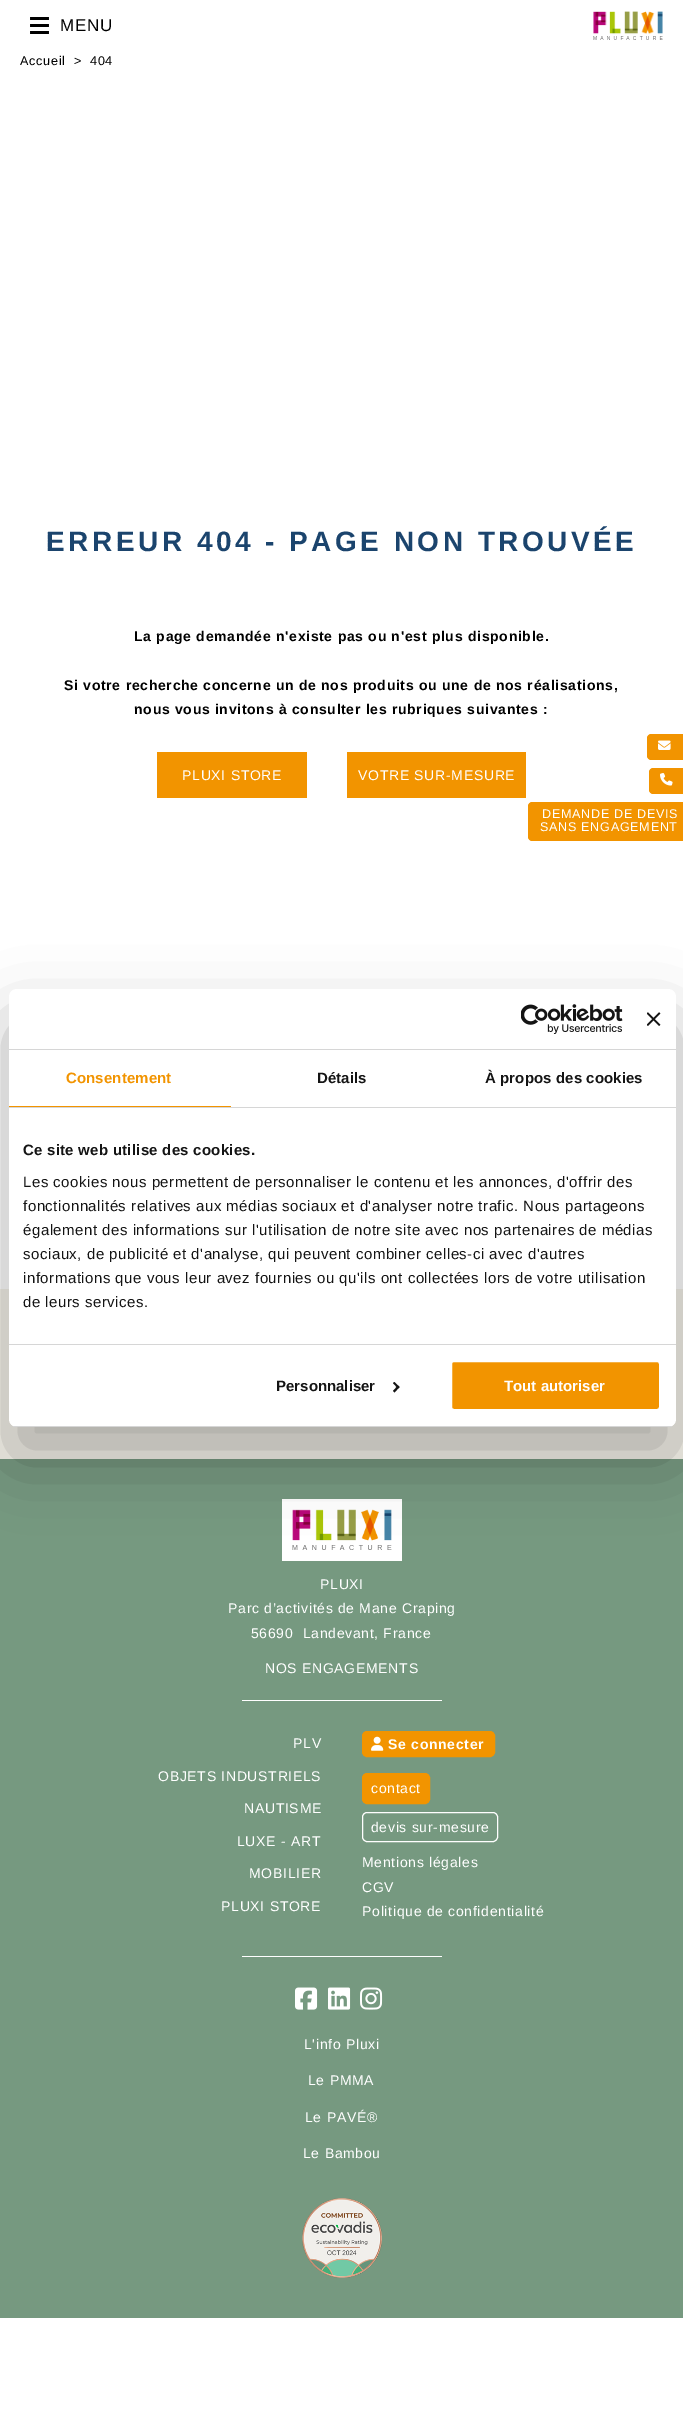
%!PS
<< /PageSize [683 2416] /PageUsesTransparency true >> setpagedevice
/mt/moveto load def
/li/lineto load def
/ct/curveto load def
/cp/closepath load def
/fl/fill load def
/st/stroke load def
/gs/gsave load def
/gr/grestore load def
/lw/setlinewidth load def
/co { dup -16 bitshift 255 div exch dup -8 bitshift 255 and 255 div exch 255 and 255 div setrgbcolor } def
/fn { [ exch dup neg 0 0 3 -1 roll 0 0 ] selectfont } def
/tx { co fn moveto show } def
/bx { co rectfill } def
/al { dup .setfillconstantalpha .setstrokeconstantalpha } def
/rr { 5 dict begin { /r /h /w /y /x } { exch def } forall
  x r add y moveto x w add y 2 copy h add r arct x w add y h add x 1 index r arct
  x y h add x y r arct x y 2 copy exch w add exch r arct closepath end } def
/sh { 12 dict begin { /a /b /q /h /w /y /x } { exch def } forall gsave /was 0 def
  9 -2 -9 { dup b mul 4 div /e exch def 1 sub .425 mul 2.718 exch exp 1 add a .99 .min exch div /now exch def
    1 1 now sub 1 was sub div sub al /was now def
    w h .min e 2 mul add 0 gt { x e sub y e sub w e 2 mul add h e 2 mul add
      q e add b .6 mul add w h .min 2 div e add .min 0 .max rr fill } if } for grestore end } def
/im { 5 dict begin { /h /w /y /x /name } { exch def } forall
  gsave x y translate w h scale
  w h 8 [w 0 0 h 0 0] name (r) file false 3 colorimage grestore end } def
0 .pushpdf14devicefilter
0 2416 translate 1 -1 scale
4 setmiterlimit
0 0 683 2416 16#FFFFFF bx
(media/1.raw) 30 17 19 17 im
(media/2.raw) 593 11 70 29 im
157 752 150 46 16#F29400 bx
347 752 179 46 16#F29400 bx
0 1459 683 859 16#769980 bx
16#F29400 co
652 734 mt 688 734 li 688 760 li 652 760 li 649 760 647 758 647 755 ct 647 739 li 647 736 649 734 652 734 ct cp fl
652 734 mt 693 734 li 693 760 li 652 760 li 649 760 647 758 647 755 ct 647 739 li 647 736 649 734 652 734 ct cp 652 735 mt 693 735 li 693 759 li 652 759 li 650 759 648 757 648 755 ct 648 739 li 648 737 650 735 652 735 ct cp eofill
(media/3.raw) 658 740 13 10 im
654 768 mt 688 768 li 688 794 li 654 794 li 651 794 649 792 649 789 ct 649 773 li 649 770 651 768 654 768 ct cp fl
654 768 mt 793 768 li 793 794 li 654 794 li 651 794 649 792 649 789 ct 649 773 li 649 770 651 768 654 768 ct cp 654 769 mt 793 769 li 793 793 li 654 793 li 652 793 650 791 650 789 ct 650 773 li 650 771 652 769 654 769 ct cp eofill
(media/4.raw) 660 773 13 13 im
533 802 mt 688 802 li 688 841 li 533 841 li 530 841 528 839 528 836 ct 528 807 li 528 804 530 802 533 802 ct cp fl
533 802 mt 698 802 li 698 841 li 533 841 li 530 841 528 839 528 836 ct 528 807 li 528 804 530 802 533 802 ct cp 533 803 mt 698 803 li 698 840 li 533 840 li 531 840 529 838 529 836 ct 529 807 li 529 805 531 803 533 803 ct cp eofill
0 1289 683 170 16#F5F3EA bx
282 1499 120 62 16#FFFFFF bx
(media/5.raw) 292 1509 100 41 im
242 1700 200 1 16#FFFFFF bx
16#F29400 co
362.5 1731.5 132 25 4.5 rr gs fl gr
st
(media/6.raw) 371 1736 13 15 im
362.5 1773.5 67 30 4.5 rr gs fl gr
st
16#FFFFFF co
362.5 1812.5 135 29 4.5 rr st
242 1956 200 1 16#FFFFFF bx
(media/7.raw) 295 1987 23 23 im
(media/8.raw) 328 1987 23 23 im
(media/9.raw) 360 1987 23 23 im
(media/10.raw) 302 2198 80 80 im
16#000000 co
9 1021 667 438 8 34 .3 sh
16#FFFFFF co
9 989 667 438 8 rr fl
9 1049 667 1 16#D6D6D6 bx
(media/11.raw) 521 1004 102 30 im
(media/12.raw) 647 1012 14 14 im
9 1107 667 1 16#D6D6D6 bx
9 1106 222 1 16#F29400 bx
9 1344 667 1 16#D6D6D6 bx
gs
9 989 667 438 8 rr clip newpath
9 1426 667 1 16#D6D6D6 bx
gr
16#141414 co
394.5 1382 mt 399.5 1387 li 398 1388.5 li 393 1383 li cp fl
398 1385.5 mt 399.5 1387 li 394.5 1392.5 li 393 1391 li cp fl
16#F29400 co
451 1361 209 49 3 rr gs fl gr
16#FFFFFF co
2 lw
st
/LiberationSans-Regular 17 fn
16#000000 co
60 31 mt .7 0 (MENU) ashow
/LiberationSans-Regular 12.6 fn
20 65 mt .7 0 (Accueil) ashow
74 65 mt .7 0 (>) ashow
90 65 mt .7 0 (404) ashow
/LiberationSans-Bold 28 fn
16#1B446D co
46 551 mt 3.5 0 (ERREUR 404 - PAGE NON TROUVÉE) ashow
/LiberationSans-Bold 14 fn
16#000000 co
134 641 mt .7 0 (La page demandée n'existe pas ou n'est plus disponible.) ashow
64 690 mt .7 0 (Si votre recherche concerne un de nos produits ou une de nos réalisations,) ashow
134 714 mt .7 0 (nous vous invitons à consulter les rubriques suivantes :) ashow
/LiberationSans-Regular 14 fn
16#FFFFFF co
182 780 mt .7 0 (PLUXI STORE) ashow
358 780 mt .7 0 (VOTRE SUR-MESURE) ashow
/LiberationSans-Regular 12.6 fn
542 818 mt .7 0 (DEMANDE DE DEVIS) ashow
540 831 mt .7 0 (SANS ENGAGEMENT) ashow
/LiberationSans-Regular 14 fn
320 1589 mt .7 0 (PLUXI) ashow
228 1613 mt .7 0 (Parc d’activités de Mane Craping) ashow
251 1638 mt .7 0 (56690  Landevant, France) ashow
265 1673 mt .7 0 (NOS ENGAGEMENTS) ashow
293 1748 mt .7 0 (PLV) ashow
158 1781 mt .7 0 (OBJETS INDUSTRIELS) ashow
244 1813 mt .7 0 (NAUTISME) ashow
237 1846 mt .7 0 (LUXE - ART) ashow
249 1878 mt .7 0 (MOBILIER) ashow
221 1911 mt .7 0 (PLUXI STORE) ashow
/LiberationSans-Bold 14 fn
388 1749 mt .7 0 (Se connecter) ashow
/LiberationSans-Regular 14 fn
371 1793 mt .7 0 (contact) ashow
371 1832 mt .7 0 (devis sur-mesure) ashow
362 1867 mt .7 0 (Mentions légales) ashow
362 1892 mt .7 0 (CGV) ashow
362 1916 mt .7 0 (Politique de confidentialité) ashow
304 2049 mt .7 0 (L'info Pluxi) ashow
308 2085 mt .7 0 (Le PMMA) ashow
305 2122 mt .7 0 (Le PAVÉ®) ashow
303 2158 mt .7 0 (Le Bambou) ashow
/LiberationSans-Bold 15 fn
16#F29400 co
66 1083 mt .1 0 (Consentement) ashow
16#141414 co
317 1083 mt .1 0 (Détails) ashow
485 1083 mt .1 0 (À propos des cookies) ashow
23 1155 mt .25 0 (Ce site web utilise des cookies.) ashow
/LiberationSans-Regular 15 fn
23 1187 mt .5 0 (Les cookies nous permettent de personnaliser le contenu et les annonces, d'offrir des) ashow
23 1211 mt .5 0 (fonctionnalités relatives aux médias sociaux et d'analyser notre trafic. Nous partageons) ashow
23 1235 mt .5 0 (également des informations sur l'utilisation de notre site avec nos partenaires de médias) ashow
23 1259 mt .5 0 (sociaux, de publicité et d'analyse, qui peuvent combiner celles-ci avec d'autres) ashow
23 1283 mt .5 0 (informations que vous leur avez fournies ou qu'ils ont collectées lors de votre utilisation) ashow
23 1307 mt .5 0 (de leurs services.) ashow
(Personnaliser) 276 1391 /LiberationSans-Bold 15 16#141414 tx
(Tout autoriser) 504 1391 /LiberationSans-Bold 15 16#FFFFFF tx
.poppdf14devicefilter showpage
